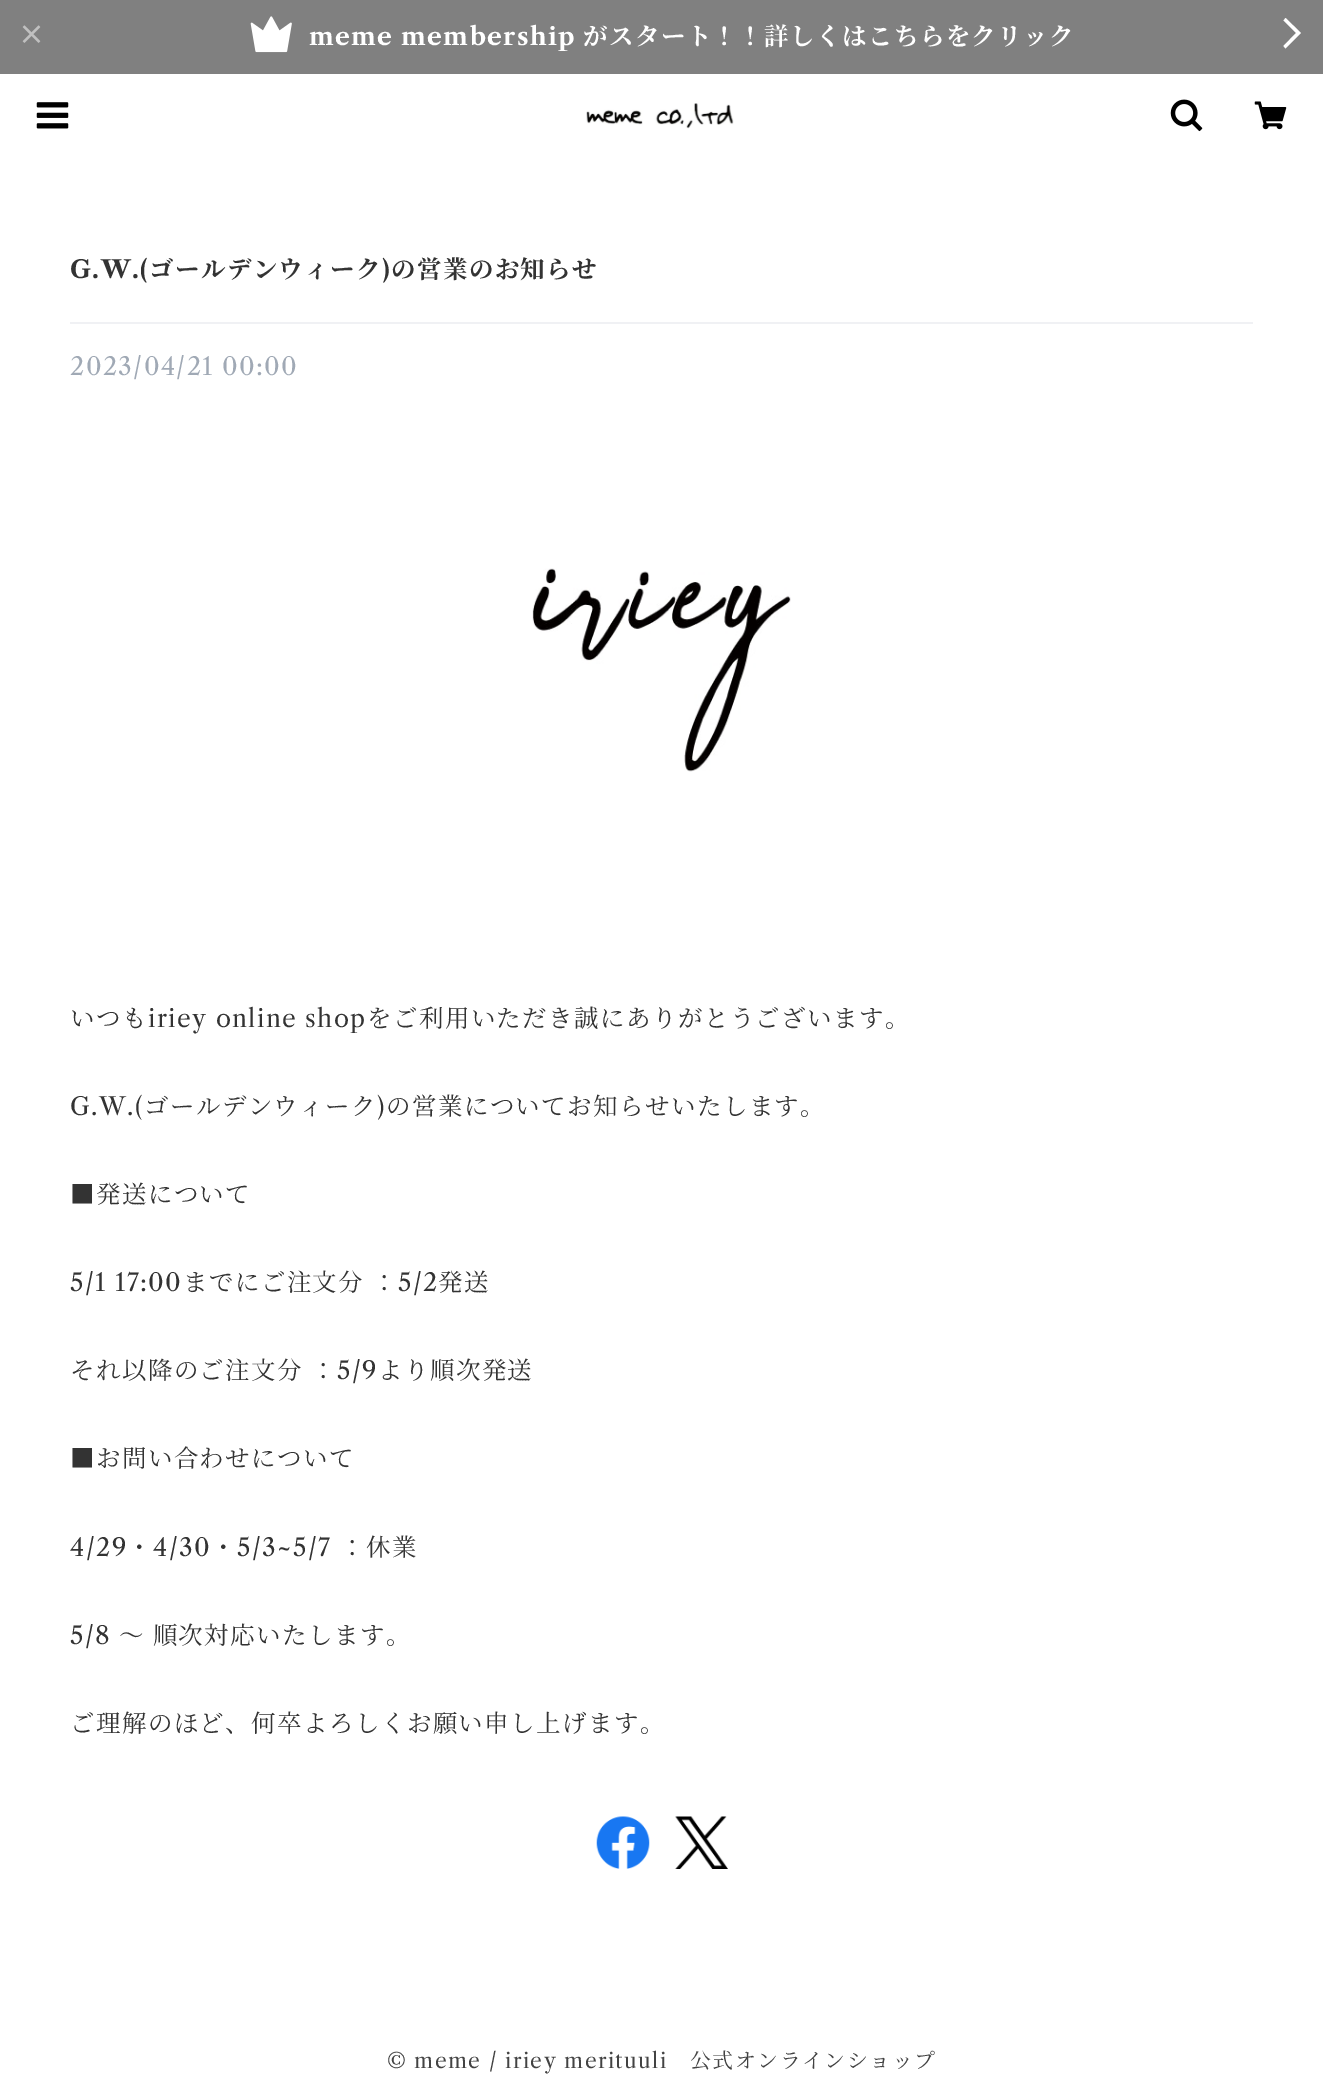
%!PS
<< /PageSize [1323 2097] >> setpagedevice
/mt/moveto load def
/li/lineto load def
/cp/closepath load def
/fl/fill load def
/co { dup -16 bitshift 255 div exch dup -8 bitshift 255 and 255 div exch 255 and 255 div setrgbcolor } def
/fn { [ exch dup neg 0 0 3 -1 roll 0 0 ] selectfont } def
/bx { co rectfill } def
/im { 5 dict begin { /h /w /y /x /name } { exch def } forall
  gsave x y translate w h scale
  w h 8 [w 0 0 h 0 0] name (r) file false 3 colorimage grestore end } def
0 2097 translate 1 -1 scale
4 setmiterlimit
0 0 1323 2097 16#FFFFFF bx
0 0 1323 74 16#808080 bx
(media/1.raw) 22 25 19 18 im
(media/2.raw) 250 16 42 37 im
16#FFFFFF co
1296 33 mt 1283.5 20.5 li 1285.5 18 li 1301 33 li 1285.5 48.5 li 1283.5 46 li cp fl
(media/3.raw) 36 102 33 27 im
(media/4.raw) 586 103 148 26 im
(media/5.raw) 1170 99 33 33 im
(media/6.raw) 1254 101 33 29 im
70 322 1183 2 16#F0F1F4 bx
(media/7.raw) 532 568 259 204 im
(media/8.raw) 596 1816 54 53 im
(media/9.raw) 675 1816 53 53 im
/LibreCaslonText-Bold 24.5 fn
16#FFFFFF co
309 45 mt 1.4 0 (meme membership) ashow
/NotoSerifJP-Bold 24.5 fn
583 45 mt 1.4 0 (がスタート！！詳しくはこちらをクリック) ashow
/LibreCaslonText-Bold 24.5 fn
16#333333 co
70 278 mt 1.4 0 (G.W.\() ashow
/NotoSerifJP-Bold 24.5 fn
149 278 mt 1.4 0 (ゴールデンウィーク) ashow
/LibreCaslonText-Bold 24.5 fn
382 278 mt 1.4 0 (\)) ashow
/NotoSerifJP-Bold 24.5 fn
391 278 mt 1.4 0 (の営業のお知らせ) ashow
/LibreCaslonText-Regular 24.5 fn
16#A0A9B5 co
70 375 mt 1.4 0 (2023/04/21 00:00) ashow
/NotoSerifJP-Regular 24.5 fn
16#333333 co
70 1027 mt 1.4 0 (いつも) ashow
/LibreCaslonText-Regular 24.5 fn
148 1027 mt 1.4 0 (iriey online shop) ashow
/NotoSerifJP-Regular 24.5 fn
367 1027 mt 1.4 0 (をご利用いただき誠にありがとうございます。) ashow
/LibreCaslonText-Regular 24.5 fn
70 1115 mt 1.4 0 (G.W.\() ashow
/NotoSerifJP-Regular 24.5 fn
144 1115 mt 1.4 0 (ゴールデンウィーク) ashow
/LibreCaslonText-Regular 24.5 fn
377 1115 mt 1.4 0 (\)) ashow
/NotoSerifJP-Regular 24.5 fn
386 1115 mt 1.4 0 (の営業についてお知らせいたします。) ashow
70 1203 mt 1.4 0 (■発送について) ashow
/LibreCaslonText-Regular 24.5 fn
70 1291 mt 1.4 0 (5/1 17:00) ashow
/NotoSerifJP-Regular 24.5 fn
183 1291 mt 1.4 0 (までにご注文分) ashow
372 1291 mt 1.4 0 (：) ashow
/LibreCaslonText-Regular 24.5 fn
398 1291 mt 1.4 0 (5/2) ashow
/NotoSerifJP-Regular 24.5 fn
438 1291 mt 1.4 0 (発送) ashow
70 1379 mt 1.4 0 (それ以降のご注文分 ：) ashow
/LibreCaslonText-Regular 24.5 fn
337 1379 mt 1.4 0 (5/9) ashow
/NotoSerifJP-Regular 24.5 fn
378 1379 mt 1.4 0 (より順次発送) ashow
70 1467 mt 1.4 0 (■お問い合わせについて) ashow
/LibreCaslonText-Regular 24.5 fn
70 1556 mt 1.4 0 (4/29) ashow
/NotoSerifJP-Regular 24.5 fn
127 1556 mt 1.4 0 (・) ashow
/LibreCaslonText-Regular 24.5 fn
153 1556 mt 1.4 0 (4/30) ashow
/NotoSerifJP-Regular 24.5 fn
211 1556 mt 1.4 0 (・) ashow
/LibreCaslonText-Regular 24.5 fn
237 1556 mt 1.4 0 (5/3~5/7) ashow
/NotoSerifJP-Regular 24.5 fn
340 1556 mt 1.4 0 (：休業) ashow
/LibreCaslonText-Regular 24.5 fn
70 1644 mt 1.4 0 (5/8) ashow
/NotoSerifJP-Regular 24.5 fn
119 1644 mt 1.4 0 (〜 順次対応いたします。) ashow
70 1732 mt 1.4 0 (ご理解のほど、何卒よろしくお願い申し上げます。) ashow
/LibreCaslonText-Regular 21 fn
16#434343 co
387 2068 mt 1.4 0 (© meme / iriey merituuli) ashow
/NotoSerifJP-Regular 21 fn
690 2068 mt 1.4 0 (公式オンラインショップ) ashow
showpage
